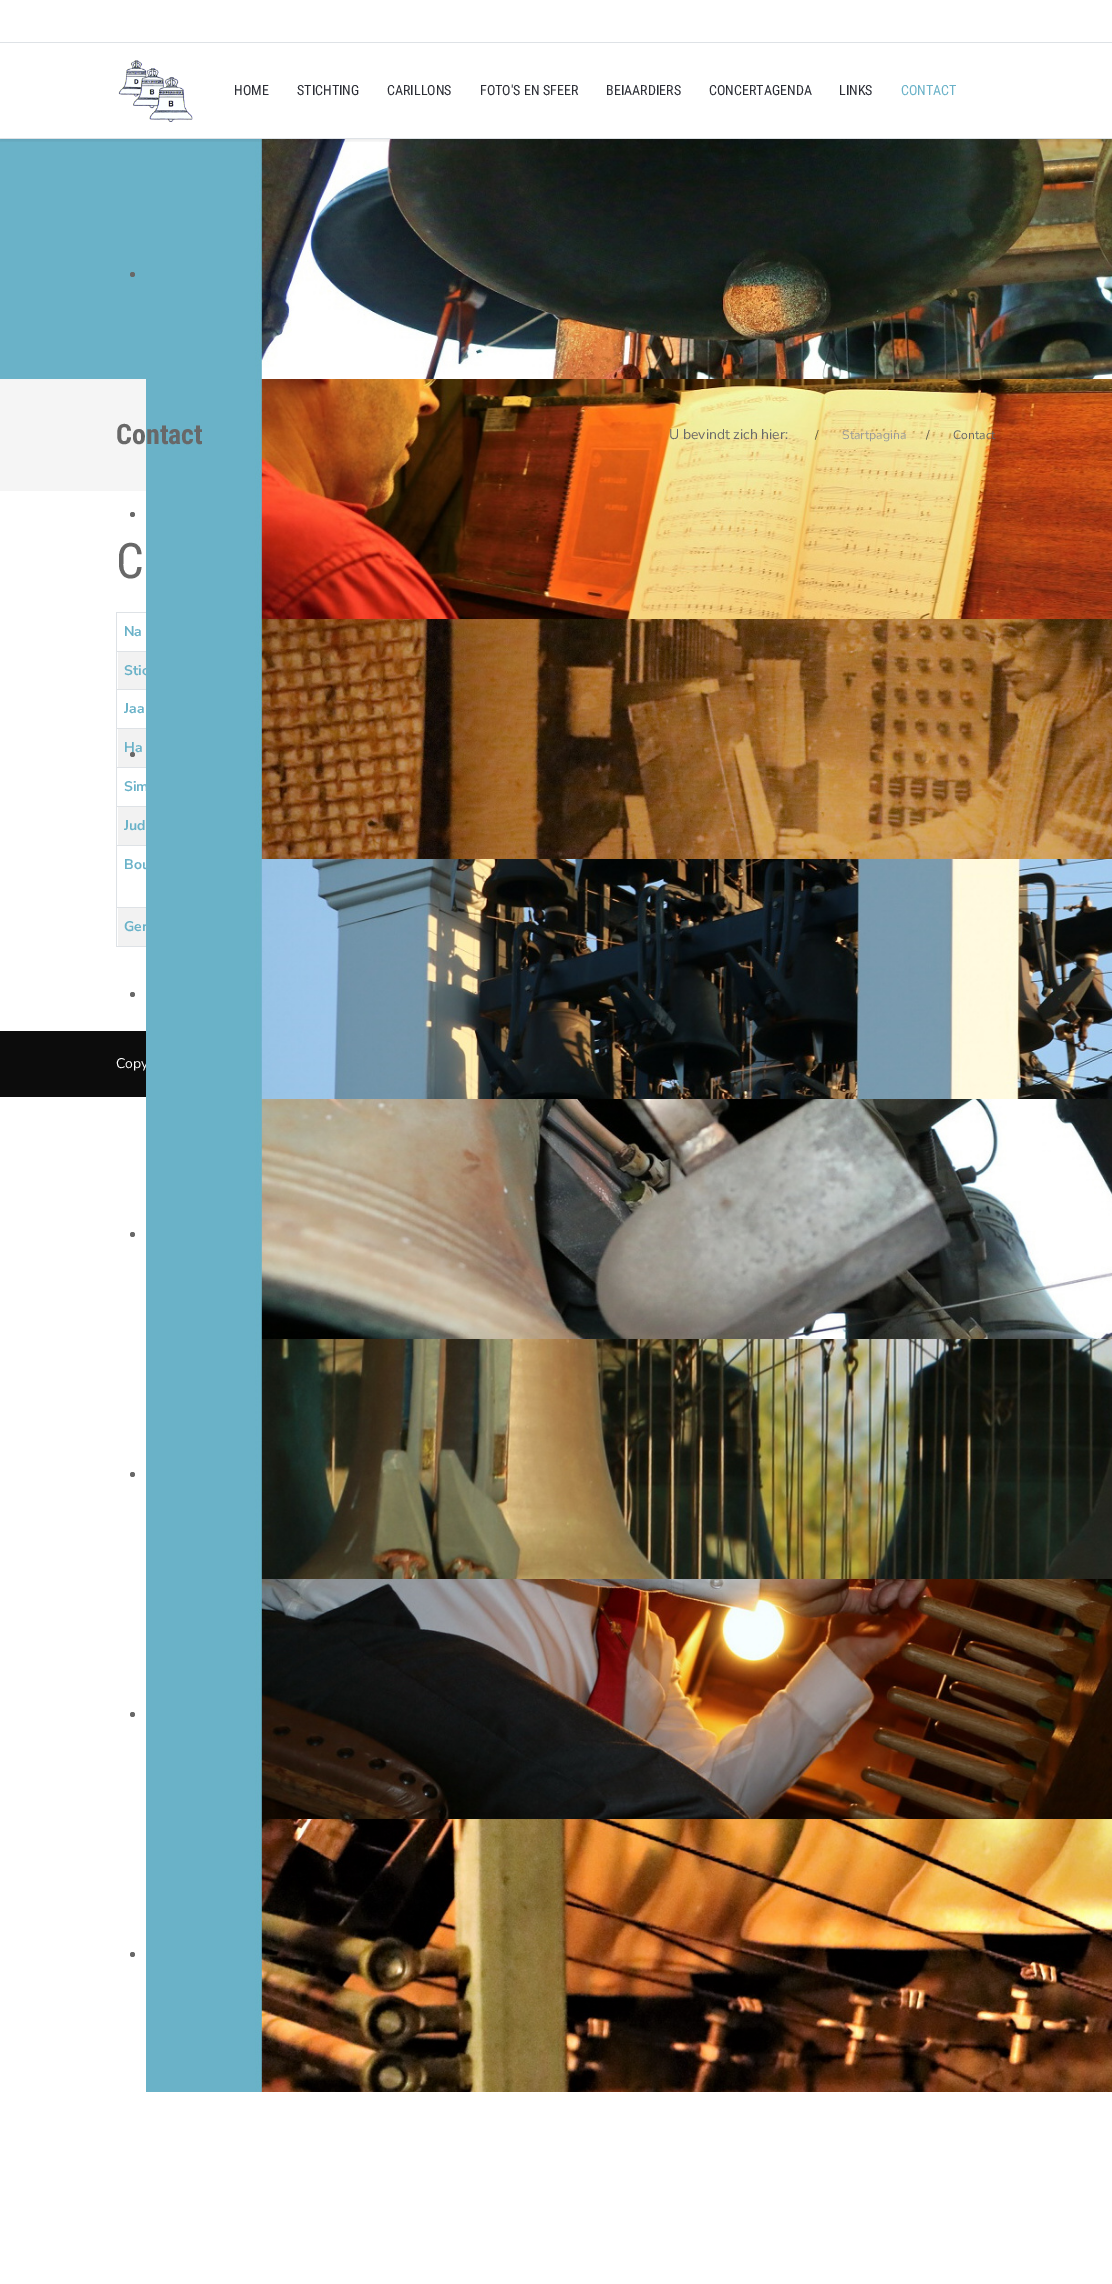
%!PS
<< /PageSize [1112 2284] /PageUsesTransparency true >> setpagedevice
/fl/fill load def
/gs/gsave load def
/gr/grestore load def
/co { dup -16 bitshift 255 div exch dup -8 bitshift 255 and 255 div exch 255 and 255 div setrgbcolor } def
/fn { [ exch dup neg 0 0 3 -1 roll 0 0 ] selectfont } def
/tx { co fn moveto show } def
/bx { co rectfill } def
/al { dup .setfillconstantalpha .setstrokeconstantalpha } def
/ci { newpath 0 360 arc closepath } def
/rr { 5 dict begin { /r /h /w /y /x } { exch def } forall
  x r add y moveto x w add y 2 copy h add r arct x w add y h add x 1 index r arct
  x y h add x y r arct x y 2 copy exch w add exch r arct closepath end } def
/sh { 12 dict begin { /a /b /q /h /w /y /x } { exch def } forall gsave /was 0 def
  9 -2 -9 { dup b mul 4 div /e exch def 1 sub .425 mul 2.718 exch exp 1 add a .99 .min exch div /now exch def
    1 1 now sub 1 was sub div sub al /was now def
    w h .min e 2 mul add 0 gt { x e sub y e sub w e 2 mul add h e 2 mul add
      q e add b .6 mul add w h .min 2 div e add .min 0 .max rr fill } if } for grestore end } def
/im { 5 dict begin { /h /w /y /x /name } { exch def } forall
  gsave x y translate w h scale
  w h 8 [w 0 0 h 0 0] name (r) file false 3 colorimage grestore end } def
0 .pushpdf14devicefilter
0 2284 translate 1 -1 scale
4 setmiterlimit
0 0 1112 2284 16#FFFFFF bx
0 42 1112 1 16#DEE2E6 bx
0 139 146 240 16#6AB2C8 bx
(media/2.raw) 146 139 966 240 im
gs
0 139 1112 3 rectclip
16#000000 co
0 45 1112 96 0 2 .07 sh
gr
0 138 1112 1 16#DEE2E6 bx
(media/1.raw) 118 60 75 62 im
16#686868 co
132.5 274.5 2.5 ci fl
132.5 514.5 2.5 ci fl
(media/3.raw) 146 379 966 240 im
132.5 994.5 2.5 ci fl
132.5 1234.5 2.5 ci fl
(media/6.raw) 146 1099 966 240 im
132.5 1474.5 2.5 ci fl
(media/7.raw) 146 1339 966 240 im
132.5 1714.5 2.5 ci fl
(media/8.raw) 146 1579 966 240 im
132.5 1954.5 2.5 ci fl
(media/9.raw) 146 1819 966 273 im
0 379 146 112 16#F5F5F5 bx
116 612 30 1 16#DEE2E6 bx
116 651 30 1 16#DEE2E6 bx
118 652 28 37 16#F2F2F2 bx
116 689 30 1 16#DEE2E6 bx
116 728 30 1 16#DEE2E6 bx
118 729 28 38 16#F2F2F2 bx
116 767 30 1 16#DEE2E6 bx
116 806 30 1 16#DEE2E6 bx
118 807 28 38 16#F2F2F2 bx
116 845 30 1 16#DEE2E6 bx
116 907 30 1 16#DEE2E6 bx
116 946 30 1 16#DEE2E6 bx
118 908 28 38 16#F2F2F2 bx
116 612 1 335 16#DEE2E6 bx
0 1031 146 66 16#0C0C0C bx
(HOME) 234 95 /RobotoCondensed-Regular 14 16#2C2E36 tx
(STICHTING) 297 95 /RobotoCondensed-Regular 14 16#2C2E36 tx
(CARILLONS) 387 95 /RobotoCondensed-Regular 14 16#2C2E36 tx
(FOTO'S EN SFEER) 480 95 /RobotoCondensed-Regular 14 16#2C2E36 tx
(BEIAARDIERS) 606 95 /RobotoCondensed-Regular 14 16#2C2E36 tx
(CONCERTAGENDA) 709 95 /RobotoCondensed-Regular 14 16#2C2E36 tx
(LINKS) 839 95 /RobotoCondensed-Regular 14 16#2C2E36 tx
(CONTACT) 901 95 /RobotoCondensed-Regular 14 16#6AB2C8 tx
(Contact) 116 444 /RobotoCondensed-Bold 28 16#686868 tx
(U bevindt zich hier:) 669 439 /NunitoSans-Regular 14 16#686868 tx
(/) 815 439 /NunitoSans-Regular 12.25 16#55513D tx
(Startpagina) 842 439 /NunitoSans-Regular 12.25 16#999999 tx
(/) 926 439 /NunitoSans-Regular 12.25 16#555344 tx
(Contact) 953 439 /NunitoSans-Regular 12.25 16#686868 tx
(C) 116 578 /RobotoCondensed-Regular 49 16#686868 tx
(Na) 124 636 /NunitoSans-Bold 14 16#6AB2C8 tx
(Stic) 124 675 /NunitoSans-Bold 14 16#6AB2C8 tx
(Jaa) 124 713 /NunitoSans-Bold 14 16#6AB2C8 tx
(Ha) 124 752 /NunitoSans-Bold 14 16#6AB2C8 tx
16#686868 co
132.5 754.5 2.5 ci fl
(Sim) 124 791 /NunitoSans-Bold 14 16#6AB2C8 tx
(media/4.raw) 146 619 966 240 im
(Jud) 124 830 /NunitoSans-Bold 14 16#6AB2C8 tx
(Bou) 124 869 /NunitoSans-Bold 14 16#6AB2C8 tx
(Ger) 124 931 /NunitoSans-Bold 14 16#6AB2C8 tx
(Copy) 116 1068 /NunitoSans-Regular 14 16#FFFFFF tx
(media/5.raw) 146 859 966 240 im
.poppdf14devicefilter showpage
